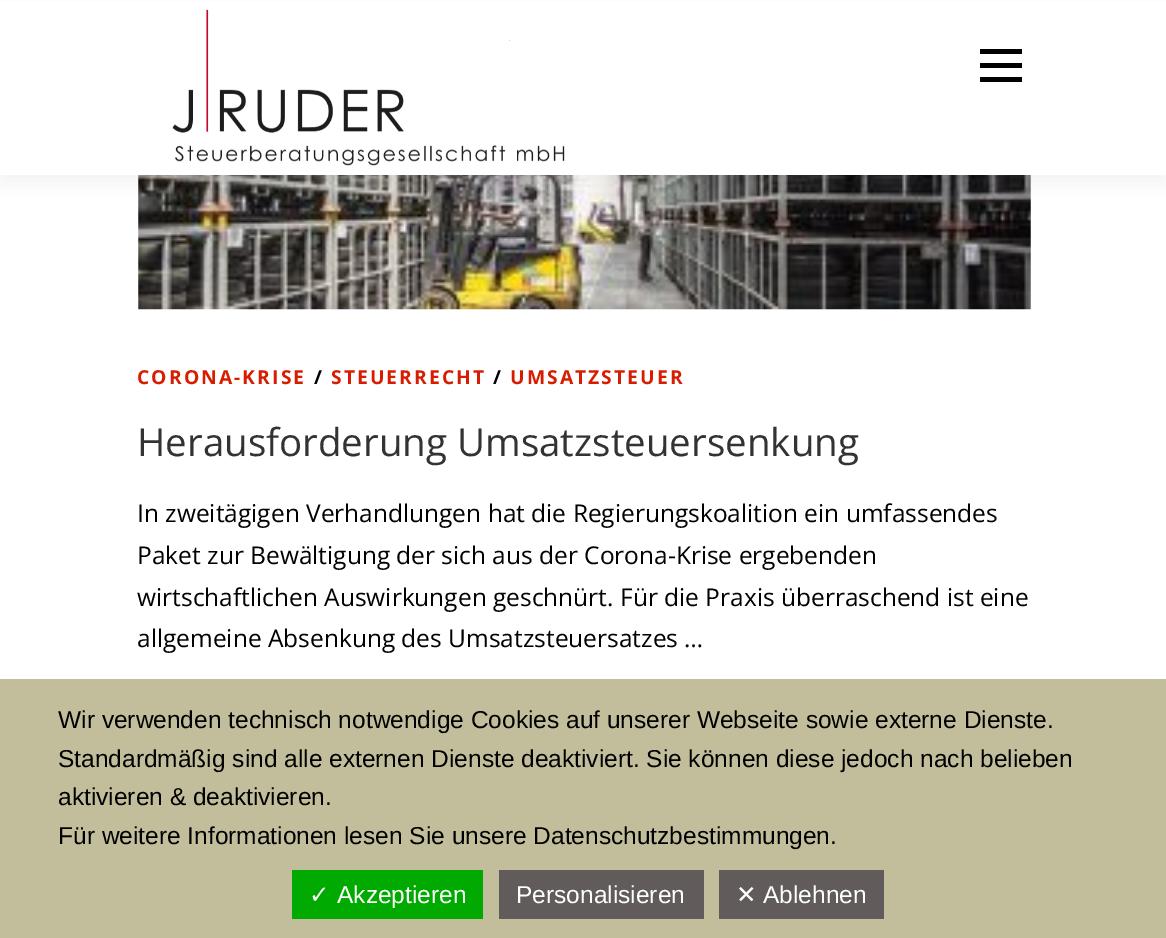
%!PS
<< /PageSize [1166 938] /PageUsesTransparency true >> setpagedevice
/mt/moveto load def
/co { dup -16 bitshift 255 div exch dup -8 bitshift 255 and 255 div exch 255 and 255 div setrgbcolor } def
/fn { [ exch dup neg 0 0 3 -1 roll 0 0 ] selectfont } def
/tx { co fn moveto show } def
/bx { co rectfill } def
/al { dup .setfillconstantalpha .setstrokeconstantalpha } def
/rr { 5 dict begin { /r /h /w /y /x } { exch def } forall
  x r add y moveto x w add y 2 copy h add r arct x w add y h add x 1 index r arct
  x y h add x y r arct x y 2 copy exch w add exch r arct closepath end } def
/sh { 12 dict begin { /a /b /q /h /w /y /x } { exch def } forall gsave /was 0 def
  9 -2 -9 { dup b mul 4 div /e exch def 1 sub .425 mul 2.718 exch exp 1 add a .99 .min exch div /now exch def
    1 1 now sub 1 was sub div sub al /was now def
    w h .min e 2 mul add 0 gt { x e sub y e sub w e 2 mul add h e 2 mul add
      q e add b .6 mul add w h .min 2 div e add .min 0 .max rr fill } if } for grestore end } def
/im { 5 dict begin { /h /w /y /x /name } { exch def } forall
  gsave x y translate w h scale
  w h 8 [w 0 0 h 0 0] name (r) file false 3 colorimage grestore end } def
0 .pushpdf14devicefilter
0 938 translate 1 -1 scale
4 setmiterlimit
0 0 1166 938 16#FFFFFF bx
(media/2.raw) 138 175 893 135 im
16#323232 co
0 9 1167 175 0 9 .06 sh
0 2 1166 173 16#FFFFFF bx
(media/1.raw) 172 9 393 157 im
980 63 42 5 16#000000 bx
980 49 42 5 16#000000 bx
980 77 42 5 16#000000 bx
0 679 1166 259 16#C2BE9B bx
292 870 191 49 16#00AA00 bx
499 870 205 49 16#615B5B bx
719 870 165 49 16#615B5B bx
/OpenSans-Bold 19.25 fn
16#D81C00 co
137 384 mt 2.1 0 (CORONA-KRISE) ashow
16#000000 co
314 384 mt 2.1 0 (/) ashow
16#D81C00 co
331 384 mt 2.1 0 (STEUERRECHT) ashow
16#000000 co
493 384 mt 2.1 0 (/) ashow
16#D81C00 co
510 384 mt 2.1 0 (UMSATZSTEUER) ashow
(Herausforderung Umsatzsteuersenkung) 137 456 /OpenSans-Regular 38.5 16#333333 tx
(In zweitägigen Verhandlungen hat die Regierungskoalition ein umfassendes) 137 522 /OpenSans-Regular 24.5 16#000000 tx
(Paket zur Bewältigung der sich aus der Corona-Krise ergebenden) 137 564 /OpenSans-Regular 24.5 16#000000 tx
(wirtschaftlichen Auswirkungen geschnürt. Für die Praxis überraschend ist eine) 137 606 /OpenSans-Regular 24.5 16#000000 tx
(allgemeine Absenkung des Umsatzsteuersatzes …) 137 647 /OpenSans-Regular 24.5 16#000000 tx
(Wir verwenden technisch notwendige Cookies auf unserer Webseite sowie externe Dienste.) 58 728 /LiberationSans-Regular 24.5 16#000000 tx
(Standardmäßig sind alle externen Dienste deaktiviert. Sie können diese jedoch nach belieben) 58 767 /LiberationSans-Regular 24.5 16#000000 tx
(aktivieren & deaktivieren.) 58 805 /LiberationSans-Regular 24.5 16#000000 tx
(Für weitere Informationen lesen Sie unsere Datenschutzbestimmungen.) 58 844 /LiberationSans-Regular 24.5 16#000000 tx
(✓) 309 903 /DejaVuSans-Regular 24.5 16#FFFFFF tx
(Akzeptieren) 337 903 /LiberationSans-Regular 24.5 16#FFFFFF tx
(Personalisieren) 516 903 /LiberationSans-Regular 24.5 16#FFFFFF tx
(✕) 736 903 /DejaVuSans-Regular 24.5 16#FFFFFF tx
(Ablehnen) 763 903 /LiberationSans-Regular 24.5 16#FFFFFF tx
.poppdf14devicefilter showpage
